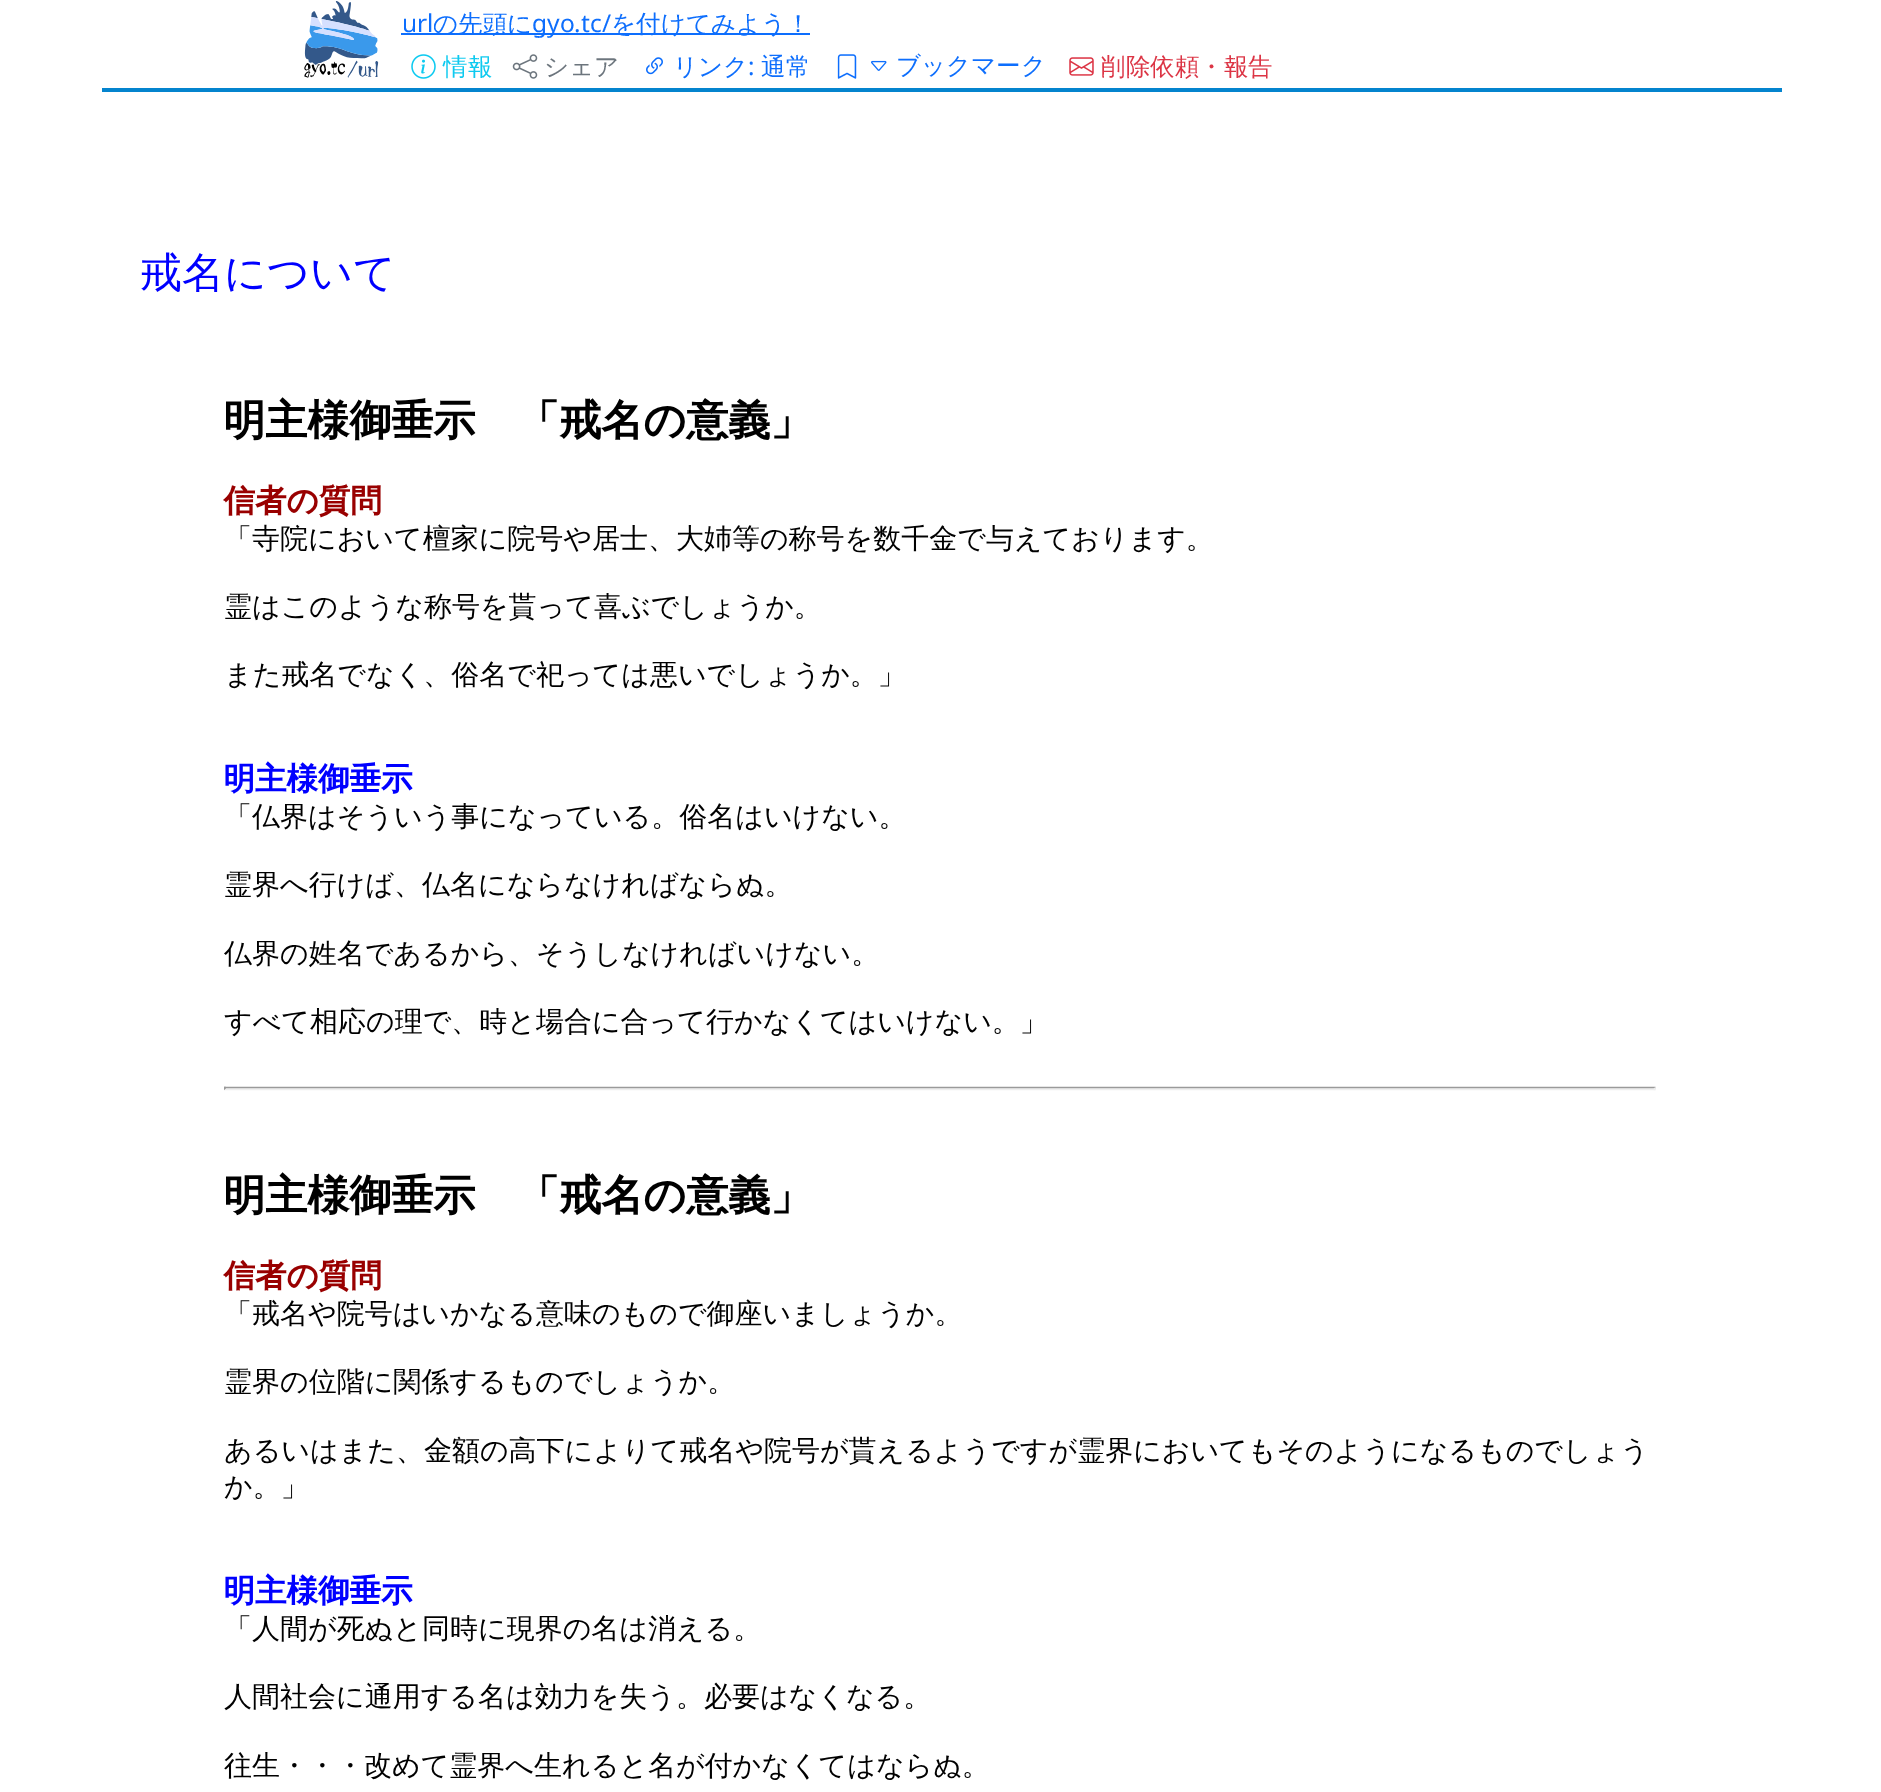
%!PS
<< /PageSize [1881 1792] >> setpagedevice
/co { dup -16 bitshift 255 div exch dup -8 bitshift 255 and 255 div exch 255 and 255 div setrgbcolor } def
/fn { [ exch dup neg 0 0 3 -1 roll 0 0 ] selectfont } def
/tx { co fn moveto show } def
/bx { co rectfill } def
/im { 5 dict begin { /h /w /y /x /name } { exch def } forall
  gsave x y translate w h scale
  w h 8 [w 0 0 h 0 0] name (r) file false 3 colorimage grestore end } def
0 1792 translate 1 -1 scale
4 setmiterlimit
0 0 1881 1792 16#FFFFFF bx
102 88 1680 4 16#0484CE bx
(media/1.raw) 304 1 75 77 im
401 33 409 2 16#0D6EFD bx
(media/2.raw) 411 54 25 25 im
(media/3.raw) 512 54 26 25 im
(media/4.raw) 646 57 17 18 im
(media/5.raw) 837 54 20 25 im
(media/6.raw) 871 60 16 11 im
(media/7.raw) 1069 57 25 19 im
(media/8.raw) 141 252 1515 1528 im
(url) 402 32 /NotoSans-Regular 24.5 16#0D6EFD tx
(の先頭に) 433 32 /WenQuanYiZenHei-Medium 24.5 16#0D6EFD tx
(gyo.tc/) 532 32 /NotoSans-Regular 24.5 16#0D6EFD tx
(を付けてみよう！) 611 32 /WenQuanYiZenHei-Medium 24.5 16#0D6EFD tx
(情報) 443 75 /WenQuanYiZenHei-Medium 24.5 16#0DCAF0 tx
(シェア) 544 75 /WenQuanYiZenHei-Medium 24.5 16#6C757D tx
(リンク) 673 75 /WenQuanYiZenHei-Medium 24.5 16#0D6EFD tx
(:) 748 75 /NotoSans-Regular 24.5 16#0D6EFD tx
(通常) 761 75 /WenQuanYiZenHei-Medium 24.5 16#0D6EFD tx
(ブックマーク) 896 74 /WenQuanYiZenHei-Medium 24.5 16#0D6EFD tx
(削除依頼・報告) 1101 75 /WenQuanYiZenHei-Medium 24.5 16#DC3545 tx
showpage
